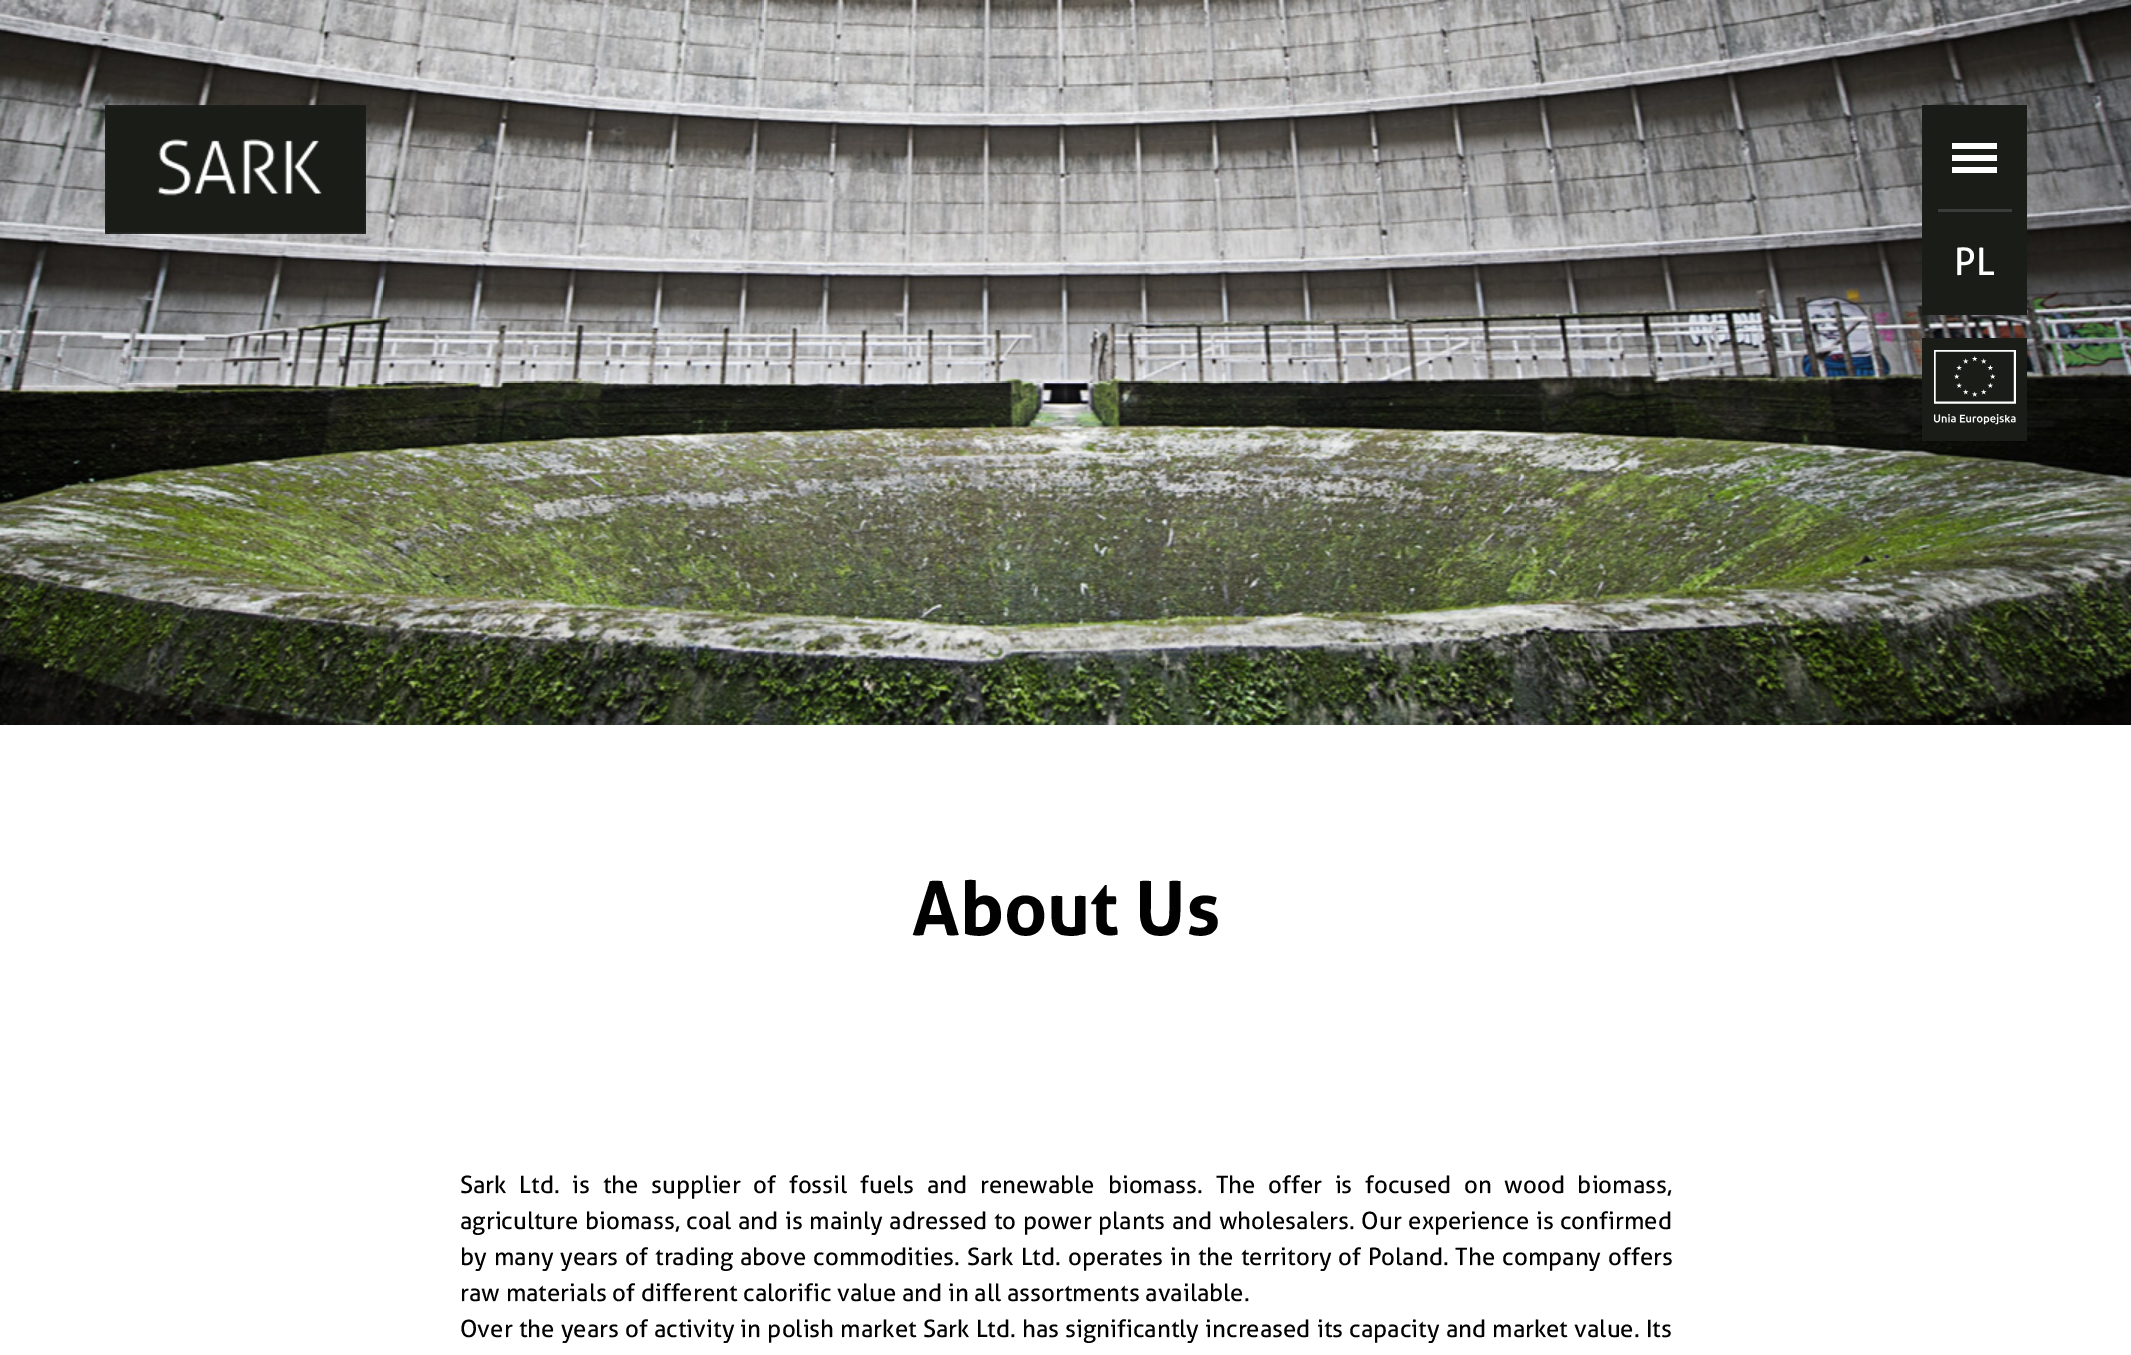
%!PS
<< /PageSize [2131 1355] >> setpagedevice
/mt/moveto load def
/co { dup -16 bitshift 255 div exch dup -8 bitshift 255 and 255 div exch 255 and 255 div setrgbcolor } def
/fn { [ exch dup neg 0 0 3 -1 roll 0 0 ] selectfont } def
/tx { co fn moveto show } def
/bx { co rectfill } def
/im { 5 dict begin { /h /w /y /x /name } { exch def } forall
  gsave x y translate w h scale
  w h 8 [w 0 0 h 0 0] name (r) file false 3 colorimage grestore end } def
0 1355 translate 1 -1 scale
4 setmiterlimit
0 0 2131 1355 16#FFFFFF bx
(media/2.raw) 0 0 2131 725 im
1922 105 105 210 16#1A1C18 bx
1952 155 45 6 16#FFFFFF bx
1952 143 45 6 16#FFFFFF bx
1952 167 45 6 16#FFFFFF bx
1938 209 74 3 16#3B3C39 bx
1922 338 105 103 16#1A1C18 bx
(media/1.raw) 1934 350 82 75 im
(media/3.raw) 105 105 261 129 im
(PL) 1954 275 /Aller-Regular 38 16#FFFFFF tx
(About Us) 912 935 /Aller-Bold 75 16#010101 tx
/Aller-Regular 24 fn
460 1193 mt 7 0 32 (Sark Ltd. is the supplier of fossil fuels and renewable biomass. The offer is focused on wood biomass,) widthshow
460 1229 mt .9 0 32 (agriculture biomass, coal and is mainly adressed to power plants and wholesalers. Our experience is confirmed) widthshow
460 1265 mt 1.25 0 32 (by many years of trading above commodities. Sark Ltd. operates in the territory of Poland. The company offers) widthshow
(raw materials of different calorific value and in all assortments available.) 460 1301 /Aller-Regular 24 16#010101 tx
460 1337 mt .5 0 32 (Over the years of activity in polish market Sark Ltd. has significantly increased its capacity and market value. Its) widthshow
showpage
